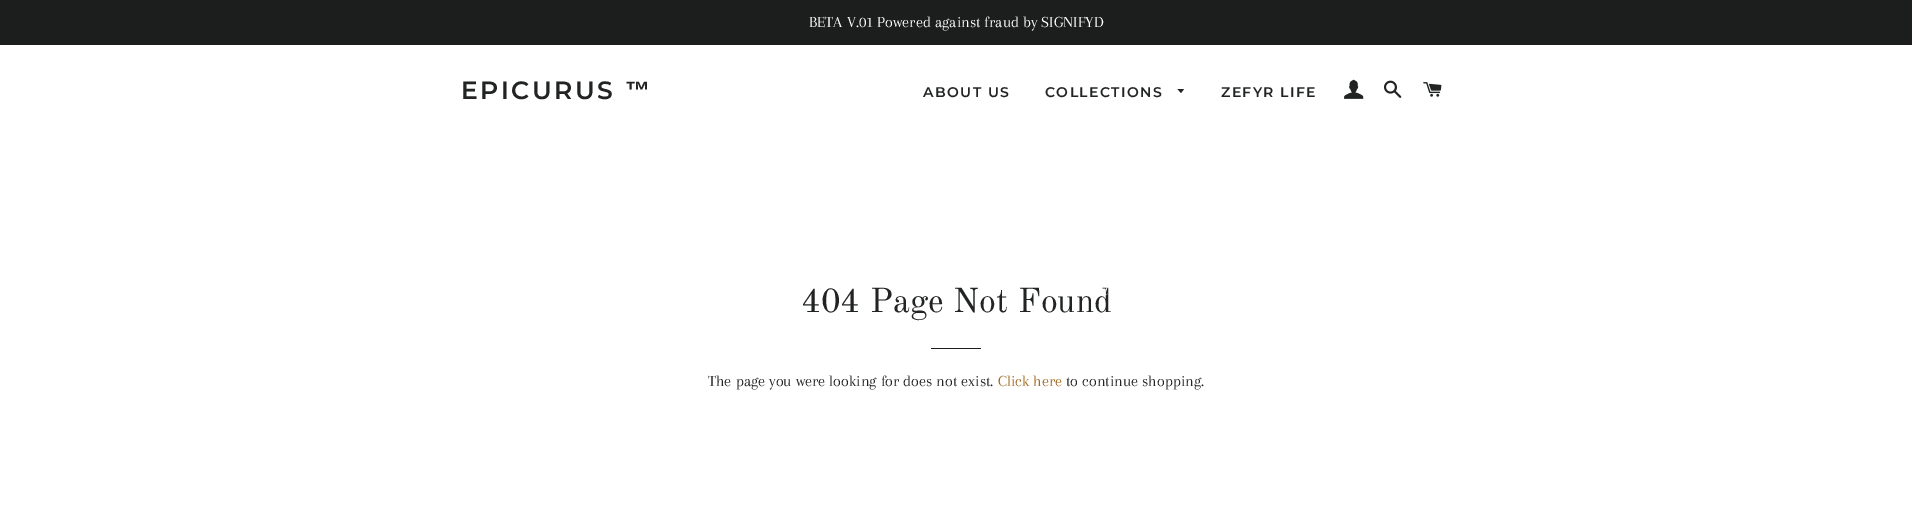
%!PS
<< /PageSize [1912 523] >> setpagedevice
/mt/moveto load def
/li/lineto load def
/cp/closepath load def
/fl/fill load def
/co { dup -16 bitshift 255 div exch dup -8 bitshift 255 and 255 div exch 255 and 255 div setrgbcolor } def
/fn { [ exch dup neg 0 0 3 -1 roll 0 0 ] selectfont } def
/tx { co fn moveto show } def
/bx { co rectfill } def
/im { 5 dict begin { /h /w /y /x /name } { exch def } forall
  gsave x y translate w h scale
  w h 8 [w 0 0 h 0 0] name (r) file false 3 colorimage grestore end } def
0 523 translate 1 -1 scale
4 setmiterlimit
0 0 1912 523 16#FFFFFF bx
0 0 1912 45 16#1C1D1D bx
16#222323 co
1177.5 89 mt 1181 93 li 1184 89 li cp fl
(media/1.raw) 1344 79 20 20 im
(media/2.raw) 1384 80 18 18 im
(media/3.raw) 1423 82 19 15 im
931 348 50 1 16#1C1D1D bx
(BETA V.01 Powered against fraud by SIGNIFYD) 809 27 /Arapey-Regular 16 16#FFFFFF tx
/Montserrat-SemiBold 25 fn
16#222323 co
461 99 mt 2.5 0 (EPICURUS) ashow
/LiberationSans-Bold 25 fn
625 99 mt 2.5 0 (™) ashow
/Montserrat-SemiBold 14 fn
923 97 mt 1.4 0 (ABOUT US) ashow
1045 97 mt 1.4 0 (COLLECTIONS) ashow
1221 97 mt 1.4 0 (ZEFYR LIFE) ashow
(404 Page Not Found) 801 312 /OldStandardTT-Regular 34 16#222323 tx
(l) 1104 295 /Arapey-Italic 16 16#F8F8F8 tx
(The page you were looking for does not exist.) 708 386 /Arapey-Regular 16 16#222323 tx
(Click here) 998 386 /Arapey-Regular 16 16#A26B25 tx
(to continue shopping.) 1066 386 /Arapey-Regular 16 16#222323 tx
showpage
